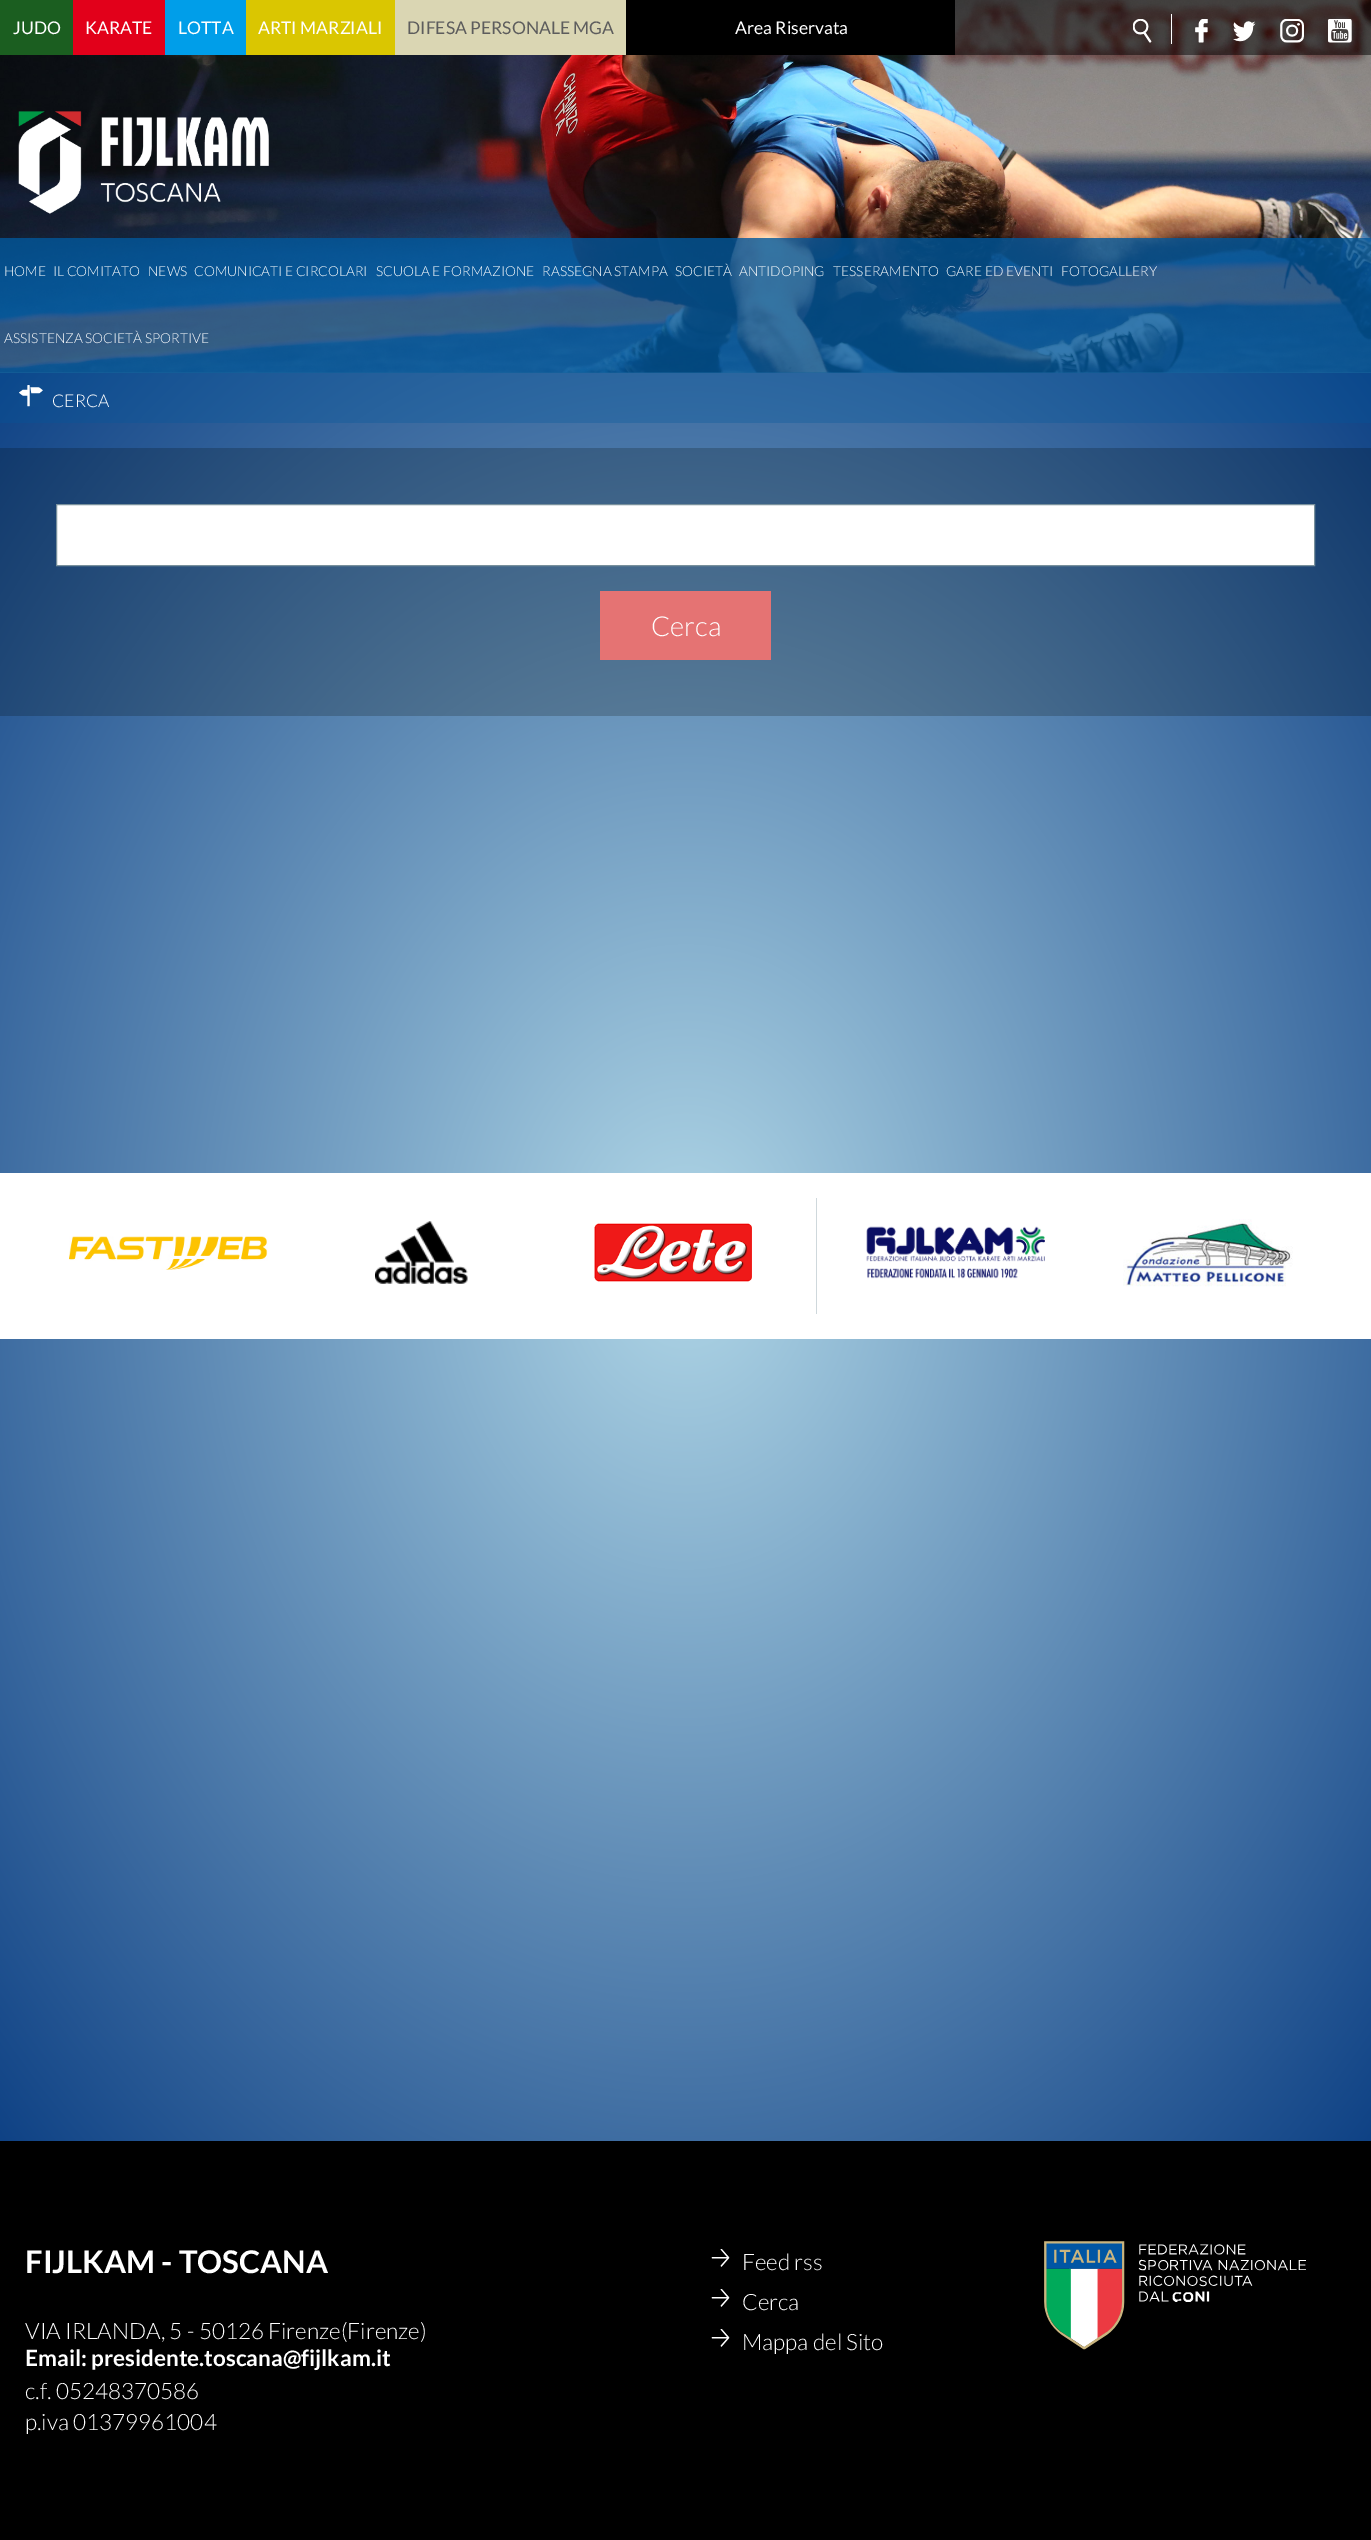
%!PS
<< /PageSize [1371 2540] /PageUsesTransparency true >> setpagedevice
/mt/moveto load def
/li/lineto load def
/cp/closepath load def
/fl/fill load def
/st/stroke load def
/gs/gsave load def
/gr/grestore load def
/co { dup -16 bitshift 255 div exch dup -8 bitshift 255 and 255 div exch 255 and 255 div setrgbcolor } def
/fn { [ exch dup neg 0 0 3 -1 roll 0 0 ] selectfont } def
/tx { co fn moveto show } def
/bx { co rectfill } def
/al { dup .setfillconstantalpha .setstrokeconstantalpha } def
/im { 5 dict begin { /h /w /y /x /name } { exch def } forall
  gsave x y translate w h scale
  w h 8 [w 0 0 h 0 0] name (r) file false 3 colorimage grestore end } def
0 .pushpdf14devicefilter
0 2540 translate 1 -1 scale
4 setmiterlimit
0 0 1371 2540 16#78909C bx
(media/6.raw) 0 0 1371 373 im
0.5 al
955 0 416 55 16#000000 bx
1 al
0 0 73 55 16#1B5E20 bx
73 0 92 55 16#E2001A bx
165 0 81 55 16#009EE9 bx
246 0 149 55 16#DAC601 bx
395 0 231 55 16#DAD6B3 bx
626 0 329 55 16#000000 bx
1171 14 1 30 16#FFFFFF bx
(media/1.raw) 1133 19 19 24 im
(media/2.raw) 1195 19 13 24 im
(media/3.raw) 1233 21 23 21 im
(media/4.raw) 1280 19 24 24 im
(media/5.raw) 1328 19 24 24 im
(media/7.raw) 18 111 251 103 im
0.8 al
0 238 1371 135 16#01579B bx
1 al
gs 0 423 mt 1371 423 li 1371 2141 li 0 2141 li cp clip newpath 686 1257 translate 970 1251 scale
<< /ShadingType 3 /ColorSpace /DeviceRGB /Coords [0 0 0 0 0 1] /Extend [true true] /Function << /FunctionType 2 /Domain [0 1] /C0 [.694 .843 .906] /C1 [.059 .259 .522] /N 1 >> >> shfill gr
gs 0 448 mt 1371 448 li 1371 716 li 0 716 li cp clip newpath 686 1257 translate 970 1251 scale
<< /ShadingType 3 /ColorSpace /DeviceRGB /Coords [0 0 0 0 0 1] /Extend [true true] /Function << /FunctionType 2 /Domain [0 1] /C0 [.557 .675 .725] /C1 [.047 .208 .416] /N 1 >> >> shfill gr
gs 0 373 mt 1371 373 li 1371 423 li 0 423 li cp clip newpath 686 1257 translate 970 1251 scale
<< /ShadingType 3 /ColorSpace /DeviceRGB /Coords [0 0 0 0 0 1] /Extend [true true] /Function << /FunctionType 2 /Domain [0 1] /C0 [.486 .694 .816] /C1 [.043 .282 .549] /N 1 >> >> shfill gr
(media/8.raw) 19 385 24 22 im
16#FFFFFF co
56.5 504.5 mt 1314.5 504.5 li 1314.5 565.5 li 56.5 565.5 li cp gs fl gr
16#78909C co
st
600 591 171 69 16#E57373 bx
0 1173 1371 166 16#FFFFFF bx
816 1198 1 116 16#CFD8DC bx
(media/9.raw) 69 1236 199 34 im
(media/10.raw) 375 1221 93 63 im
(media/11.raw) 594 1223 158 59 im
(media/12.raw) 866 1226 179 53 im
(media/13.raw) 1123 1219 170 68 im
0 2141 1371 399 16#000000 bx
(media/14.raw) 711 2249 19 18 im
(media/14.raw) 711 2289 19 18 im
(media/14.raw) 711 2329 19 18 im
(media/15.raw) 1044 2241 262 109 im
(JUDO) 13 34 /Lato-Regular 17.5 16#FFFFFF tx
(KARATE) 85 34 /Lato-Regular 17.5 16#FFFFFF tx
(LOTTA) 178 34 /Lato-Regular 17.5 16#FFFFFF tx
(ARTI MARZIALI) 258 34 /Lato-Regular 17.5 16#FFFFFF tx
(DIFESA PERSONALE MGA) 407 34 /Lato-Regular 17.5 16#5D5D5D tx
(Area Riservata) 735 34 /Lato-Regular 17.5 16#FFFFFF tx
(HOME) 4 276 /Lato-Light 13.75 16#FFFFFF tx
(IL COMITATO) 53 276 /Lato-Light 13.75 16#FFFFFF tx
(NEWS) 148 276 /Lato-Light 13.75 16#FFFFFF tx
(COMUNICATI E CIRCOLARI) 194 276 /Lato-Light 13.75 16#FFFFFF tx
(SCUOLA E FORMAZIONE) 376 276 /Lato-Light 13.75 16#FFFFFF tx
(RASSEGNA STAMPA) 542 276 /Lato-Light 13.75 16#FFFFFF tx
(SOCIETÀ) 675 276 /Lato-Light 13.75 16#FFFFFF tx
(ANTIDOPING) 739 276 /Lato-Light 13.75 16#FFFFFF tx
(TESSERAMENTO) 833 276 /Lato-Light 13.75 16#FFFFFF tx
(GARE ED EVENTI) 946 276 /Lato-Light 13.75 16#FFFFFF tx
(FOTOGALLERY) 1061 276 /Lato-Light 13.75 16#FFFFFF tx
(ASSISTENZA SOCIETÀ SPORTIVE) 4 343 /Lato-Light 13.75 16#FFFFFF tx
(CERCA) 52 407 /Lato-Light 17.5 16#FFFFFF tx
(Cerca) 651 636 /Lato-Light 27.5 16#FFFFFF tx
(FIJLKAM - TOSCANA) 25 2273 /Lato-Bold 31.25 16#FFFFFF tx
(VIA IRLANDA, 5 - 50126 Firenze\(Firenze\)) 25 2339 /Lato-Light 22.5 16#FFFFFF tx
(Email: presidente.toscana@fijlkam.it) 25 2366 /Lato-Bold 22.5 16#FFFFFF tx
(c.f. 05248370586) 25 2399 /Lato-Light 22.5 16#FFFFFF tx
(p.iva 01379961004) 25 2430 /Lato-Light 22.5 16#FFFFFF tx
(Feed rss) 742 2270 /Lato-Light 22.5 16#FFFFFF tx
(Cerca) 742 2310 /Lato-Light 22.5 16#FFFFFF tx
(Mappa del Sito) 742 2350 /Lato-Light 22.5 16#FFFFFF tx
.poppdf14devicefilter showpage
